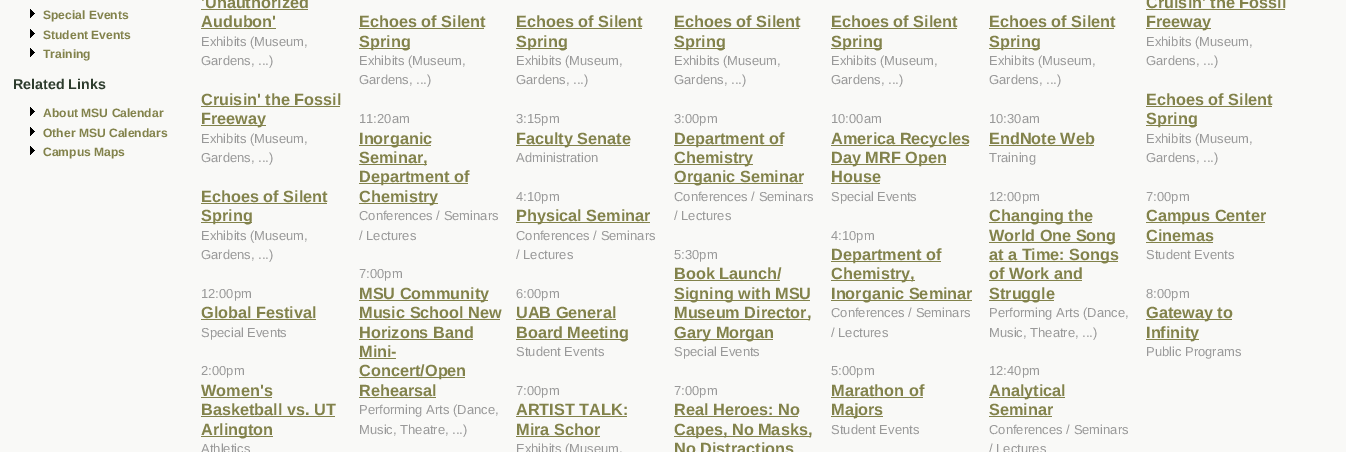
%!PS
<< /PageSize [1346 452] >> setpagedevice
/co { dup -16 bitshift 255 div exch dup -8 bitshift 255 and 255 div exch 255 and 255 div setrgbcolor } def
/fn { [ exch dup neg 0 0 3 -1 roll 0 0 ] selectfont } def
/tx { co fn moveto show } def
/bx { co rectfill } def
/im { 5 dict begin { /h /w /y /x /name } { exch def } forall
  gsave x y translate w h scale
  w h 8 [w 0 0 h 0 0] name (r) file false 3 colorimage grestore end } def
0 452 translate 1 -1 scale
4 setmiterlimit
0 0 1346 452 16#F9F9F7 bx
(media/1.raw) 30 9 5 9 im
(media/1.raw) 30 29 5 9 im
(media/1.raw) 30 48 5 9 im
(media/1.raw) 30 107 5 9 im
(media/1.raw) 30 127 5 9 im
(media/1.raw) 30 146 5 9 im
201 9 107 1 16#82824B bx
201 28 75 1 16#82824B bx
201 106 139 1 16#82824B bx
201 125 65 1 16#82824B bx
201 203 126 1 16#82824B bx
201 222 51 1 16#82824B bx
201 319 115 1 16#82824B bx
201 397 71 1 16#82824B bx
201 416 134 1 16#82824B bx
201 436 72 1 16#82824B bx
359 28 125 1 16#82824B bx
359 48 51 1 16#82824B bx
359 145 72 1 16#82824B bx
359 164 68 1 16#82824B bx
359 183 109 1 16#82824B bx
359 203 79 1 16#82824B bx
359 300 129 1 16#82824B bx
359 319 141 1 16#82824B bx
359 339 114 1 16#82824B bx
359 358 37 1 16#82824B bx
359 377 106 1 16#82824B bx
359 397 77 1 16#82824B bx
516 28 126 1 16#82824B bx
516 48 51 1 16#82824B bx
516 145 114 1 16#82824B bx
516 222 134 1 16#82824B bx
516 319 100 1 16#82824B bx
516 339 112 1 16#82824B bx
516 416 111 1 16#82824B bx
516 436 84 1 16#82824B bx
674 28 125 1 16#82824B bx
674 48 51 1 16#82824B bx
674 145 109 1 16#82824B bx
674 164 79 1 16#82824B bx
674 183 129 1 16#82824B bx
674 280 106 1 16#82824B bx
674 300 136 1 16#82824B bx
674 319 136 1 16#82824B bx
674 339 99 1 16#82824B bx
674 416 124 1 16#82824B bx
674 436 137 1 16#82824B bx
831 28 126 1 16#82824B bx
831 48 51 1 16#82824B bx
831 145 138 1 16#82824B bx
831 164 115 1 16#82824B bx
831 183 49 1 16#82824B bx
831 261 110 1 16#82824B bx
831 280 84 1 16#82824B bx
831 300 141 1 16#82824B bx
831 397 92 1 16#82824B bx
831 416 52 1 16#82824B bx
989 28 125 1 16#82824B bx
989 48 51 1 16#82824B bx
989 145 105 1 16#82824B bx
989 222 103 1 16#82824B bx
989 242 126 1 16#82824B bx
989 261 129 1 16#82824B bx
989 280 93 1 16#82824B bx
989 300 65 1 16#82824B bx
989 397 76 1 16#82824B bx
989 416 63 1 16#82824B bx
1146 9 139 1 16#82824B bx
1146 28 65 1 16#82824B bx
1146 106 126 1 16#82824B bx
1146 125 51 1 16#82824B bx
1146 222 119 1 16#82824B bx
1146 242 67 1 16#82824B bx
1146 319 86 1 16#82824B bx
1146 339 53 1 16#82824B bx
(Special Events) 43 19 /LiberationSans-Bold 12.1 16#82824B tx
(Student Events) 43 39 /LiberationSans-Bold 12.1 16#82824B tx
(Training) 43 58 /LiberationSans-Bold 12.1 16#82824B tx
(Related Links) 13 89 /LiberationSans-Bold 14.25 16#2D3C2D tx
(About MSU Calendar) 43 117 /LiberationSans-Bold 12.1 16#82824B tx
(Other MSU Calendars) 43 137 /LiberationSans-Bold 12.1 16#82824B tx
(Campus Maps) 43 156 /LiberationSans-Bold 12.1 16#82824B tx
('Unauthorized) 201 8 /LiberationSans-Bold 16.25 16#82824B tx
(Audubon') 201 27 /LiberationSans-Bold 16.25 16#82824B tx
(Exhibits \(Museum,) 201 46 /LiberationSans-Regular 13 16#999999 tx
(Gardens, ...\)) 201 65 /LiberationSans-Regular 13 16#999999 tx
(Cruisin' the Fossil) 201 105 /LiberationSans-Bold 16.25 16#82824B tx
(Freeway) 201 124 /LiberationSans-Bold 16.25 16#82824B tx
(Exhibits \(Museum,) 201 143 /LiberationSans-Regular 13 16#999999 tx
(Gardens, ...\)) 201 162 /LiberationSans-Regular 13 16#999999 tx
(Echoes of Silent) 201 202 /LiberationSans-Bold 16.25 16#82824B tx
(Spring) 201 221 /LiberationSans-Bold 16.25 16#82824B tx
(Exhibits \(Museum,) 201 240 /LiberationSans-Regular 13 16#999999 tx
(Gardens, ...\)) 201 259 /LiberationSans-Regular 13 16#999999 tx
(12:00pm) 201 298 /LiberationSans-Regular 13 16#999999 tx
(Global Festival) 201 318 /LiberationSans-Bold 16.25 16#82824B tx
(Special Events) 201 337 /LiberationSans-Regular 13 16#999999 tx
(2:00pm) 201 375 /LiberationSans-Regular 13 16#999999 tx
(Women's) 201 396 /LiberationSans-Bold 16.25 16#82824B tx
(Basketball vs. UT) 201 415 /LiberationSans-Bold 16.25 16#82824B tx
(Arlington) 201 435 /LiberationSans-Bold 16.25 16#82824B tx
(Athletics) 201 453 /LiberationSans-Regular 13 16#999999 tx
(Echoes of Silent) 359 27 /LiberationSans-Bold 16.25 16#82824B tx
(Spring) 359 47 /LiberationSans-Bold 16.25 16#82824B tx
(Exhibits \(Museum,) 359 65 /LiberationSans-Regular 13 16#999999 tx
(Gardens, ...\)) 359 84 /LiberationSans-Regular 13 16#999999 tx
(11:20am) 359 123 /LiberationSans-Regular 13 16#999999 tx
(Inorganic) 359 144 /LiberationSans-Bold 16.25 16#82824B tx
(Seminar,) 359 163 /LiberationSans-Bold 16.25 16#82824B tx
(Department of) 359 182 /LiberationSans-Bold 16.25 16#82824B tx
(Chemistry) 359 202 /LiberationSans-Bold 16.25 16#82824B tx
(Conferences / Seminars) 359 220 /LiberationSans-Regular 13 16#999999 tx
(/ Lectures) 359 240 /LiberationSans-Regular 13 16#999999 tx
(7:00pm) 359 278 /LiberationSans-Regular 13 16#999999 tx
(MSU Community) 359 299 /LiberationSans-Bold 16.25 16#82824B tx
(Music School New) 359 318 /LiberationSans-Bold 16.25 16#82824B tx
(Horizons Band) 359 338 /LiberationSans-Bold 16.25 16#82824B tx
(Mini-) 359 357 /LiberationSans-Bold 16.25 16#82824B tx
(Concert/Open) 359 376 /LiberationSans-Bold 16.25 16#82824B tx
(Rehearsal) 359 396 /LiberationSans-Bold 16.25 16#82824B tx
(Performing Arts \(Dance,) 359 414 /LiberationSans-Regular 13 16#999999 tx
(Music, Theatre, ...\)) 359 434 /LiberationSans-Regular 13 16#999999 tx
(Echoes of Silent) 516 27 /LiberationSans-Bold 16.25 16#82824B tx
(Spring) 516 47 /LiberationSans-Bold 16.25 16#82824B tx
(Exhibits \(Museum,) 516 65 /LiberationSans-Regular 13 16#999999 tx
(Gardens, ...\)) 516 84 /LiberationSans-Regular 13 16#999999 tx
(3:15pm) 516 123 /LiberationSans-Regular 13 16#999999 tx
(Faculty Senate) 516 144 /LiberationSans-Bold 16.25 16#82824B tx
(Administration) 516 162 /LiberationSans-Regular 13 16#999999 tx
(4:10pm) 516 201 /LiberationSans-Regular 13 16#999999 tx
(Physical Seminar) 516 221 /LiberationSans-Bold 16.25 16#82824B tx
(Conferences / Seminars) 516 240 /LiberationSans-Regular 13 16#999999 tx
(/ Lectures) 516 259 /LiberationSans-Regular 13 16#999999 tx
(6:00pm) 516 298 /LiberationSans-Regular 13 16#999999 tx
(UAB General) 516 318 /LiberationSans-Bold 16.25 16#82824B tx
(Board Meeting) 516 338 /LiberationSans-Bold 16.25 16#82824B tx
(Student Events) 516 356 /LiberationSans-Regular 13 16#999999 tx
(7:00pm) 516 395 /LiberationSans-Regular 13 16#999999 tx
(ARTIST TALK:) 516 415 /LiberationSans-Bold 16.25 16#82824B tx
(Mira Schor) 516 435 /LiberationSans-Bold 16.25 16#82824B tx
(Exhibits \(Museum,) 516 453 /LiberationSans-Regular 13 16#999999 tx
(Echoes of Silent) 674 27 /LiberationSans-Bold 16.25 16#82824B tx
(Spring) 674 47 /LiberationSans-Bold 16.25 16#82824B tx
(Exhibits \(Museum,) 674 65 /LiberationSans-Regular 13 16#999999 tx
(Gardens, ...\)) 674 84 /LiberationSans-Regular 13 16#999999 tx
(3:00pm) 674 123 /LiberationSans-Regular 13 16#999999 tx
(Department of) 674 144 /LiberationSans-Bold 16.25 16#82824B tx
(Chemistry) 674 163 /LiberationSans-Bold 16.25 16#82824B tx
(Organic Seminar) 674 182 /LiberationSans-Bold 16.25 16#82824B tx
(Conferences / Seminars) 674 201 /LiberationSans-Regular 13 16#999999 tx
(/ Lectures) 674 220 /LiberationSans-Regular 13 16#999999 tx
(5:30pm) 674 259 /LiberationSans-Regular 13 16#999999 tx
(Book Launch/) 674 279 /LiberationSans-Bold 16.25 16#82824B tx
(Signing with MSU) 674 299 /LiberationSans-Bold 16.25 16#82824B tx
(Museum Director,) 674 318 /LiberationSans-Bold 16.25 16#82824B tx
(Gary Morgan) 674 338 /LiberationSans-Bold 16.25 16#82824B tx
(Special Events) 674 356 /LiberationSans-Regular 13 16#999999 tx
(7:00pm) 674 395 /LiberationSans-Regular 13 16#999999 tx
(Real Heroes: No) 674 415 /LiberationSans-Bold 16.25 16#82824B tx
(Capes, No Masks,) 674 435 /LiberationSans-Bold 16.25 16#82824B tx
(No Distractions) 674 454 /LiberationSans-Bold 16.25 16#82824B tx
(Echoes of Silent) 831 27 /LiberationSans-Bold 16.25 16#82824B tx
(Spring) 831 47 /LiberationSans-Bold 16.25 16#82824B tx
(Exhibits \(Museum,) 831 65 /LiberationSans-Regular 13 16#999999 tx
(Gardens, ...\)) 831 84 /LiberationSans-Regular 13 16#999999 tx
(10:00am) 831 123 /LiberationSans-Regular 13 16#999999 tx
(America Recycles) 831 144 /LiberationSans-Bold 16.25 16#82824B tx
(Day MRF Open) 831 163 /LiberationSans-Bold 16.25 16#82824B tx
(House) 831 182 /LiberationSans-Bold 16.25 16#82824B tx
(Special Events) 831 201 /LiberationSans-Regular 13 16#999999 tx
(4:10pm) 831 240 /LiberationSans-Regular 13 16#999999 tx
(Department of) 831 260 /LiberationSans-Bold 16.25 16#82824B tx
(Chemistry,) 831 279 /LiberationSans-Bold 16.25 16#82824B tx
(Inorganic Seminar) 831 299 /LiberationSans-Bold 16.25 16#82824B tx
(Conferences / Seminars) 831 317 /LiberationSans-Regular 13 16#999999 tx
(/ Lectures) 831 337 /LiberationSans-Regular 13 16#999999 tx
(5:00pm) 831 375 /LiberationSans-Regular 13 16#999999 tx
(Marathon of) 831 396 /LiberationSans-Bold 16.25 16#82824B tx
(Majors) 831 415 /LiberationSans-Bold 16.25 16#82824B tx
(Student Events) 831 434 /LiberationSans-Regular 13 16#999999 tx
(Echoes of Silent) 989 27 /LiberationSans-Bold 16.25 16#82824B tx
(Spring) 989 47 /LiberationSans-Bold 16.25 16#82824B tx
(Exhibits \(Museum,) 989 65 /LiberationSans-Regular 13 16#999999 tx
(Gardens, ...\)) 989 84 /LiberationSans-Regular 13 16#999999 tx
(10:30am) 989 123 /LiberationSans-Regular 13 16#999999 tx
(EndNote Web) 989 144 /LiberationSans-Bold 16.25 16#82824B tx
(Training) 989 162 /LiberationSans-Regular 13 16#999999 tx
(12:00pm) 989 201 /LiberationSans-Regular 13 16#999999 tx
(Changing the) 989 221 /LiberationSans-Bold 16.25 16#82824B tx
(World One Song) 989 241 /LiberationSans-Bold 16.25 16#82824B tx
(at a Time: Songs) 989 260 /LiberationSans-Bold 16.25 16#82824B tx
(of Work and) 989 279 /LiberationSans-Bold 16.25 16#82824B tx
(Struggle) 989 299 /LiberationSans-Bold 16.25 16#82824B tx
(Performing Arts \(Dance,) 989 317 /LiberationSans-Regular 13 16#999999 tx
(Music, Theatre, ...\)) 989 337 /LiberationSans-Regular 13 16#999999 tx
(12:40pm) 989 375 /LiberationSans-Regular 13 16#999999 tx
(Analytical) 989 396 /LiberationSans-Bold 16.25 16#82824B tx
(Seminar) 989 415 /LiberationSans-Bold 16.25 16#82824B tx
(Conferences / Seminars) 989 434 /LiberationSans-Regular 13 16#999999 tx
(/ Lectures) 989 453 /LiberationSans-Regular 13 16#999999 tx
(Cruisin' the Fossil) 1146 8 /LiberationSans-Bold 16.25 16#82824B tx
(Freeway) 1146 27 /LiberationSans-Bold 16.25 16#82824B tx
(Exhibits \(Museum,) 1146 46 /LiberationSans-Regular 13 16#999999 tx
(Gardens, ...\)) 1146 65 /LiberationSans-Regular 13 16#999999 tx
(Echoes of Silent) 1146 105 /LiberationSans-Bold 16.25 16#82824B tx
(Spring) 1146 124 /LiberationSans-Bold 16.25 16#82824B tx
(Exhibits \(Museum,) 1146 143 /LiberationSans-Regular 13 16#999999 tx
(Gardens, ...\)) 1146 162 /LiberationSans-Regular 13 16#999999 tx
(7:00pm) 1146 201 /LiberationSans-Regular 13 16#999999 tx
(Campus Center) 1146 221 /LiberationSans-Bold 16.25 16#82824B tx
(Cinemas) 1146 241 /LiberationSans-Bold 16.25 16#82824B tx
(Student Events) 1146 259 /LiberationSans-Regular 13 16#999999 tx
(8:00pm) 1146 298 /LiberationSans-Regular 13 16#999999 tx
(Gateway to) 1146 318 /LiberationSans-Bold 16.25 16#82824B tx
(Infinity) 1146 338 /LiberationSans-Bold 16.25 16#82824B tx
(Public Programs) 1146 356 /LiberationSans-Regular 13 16#999999 tx
showpage
